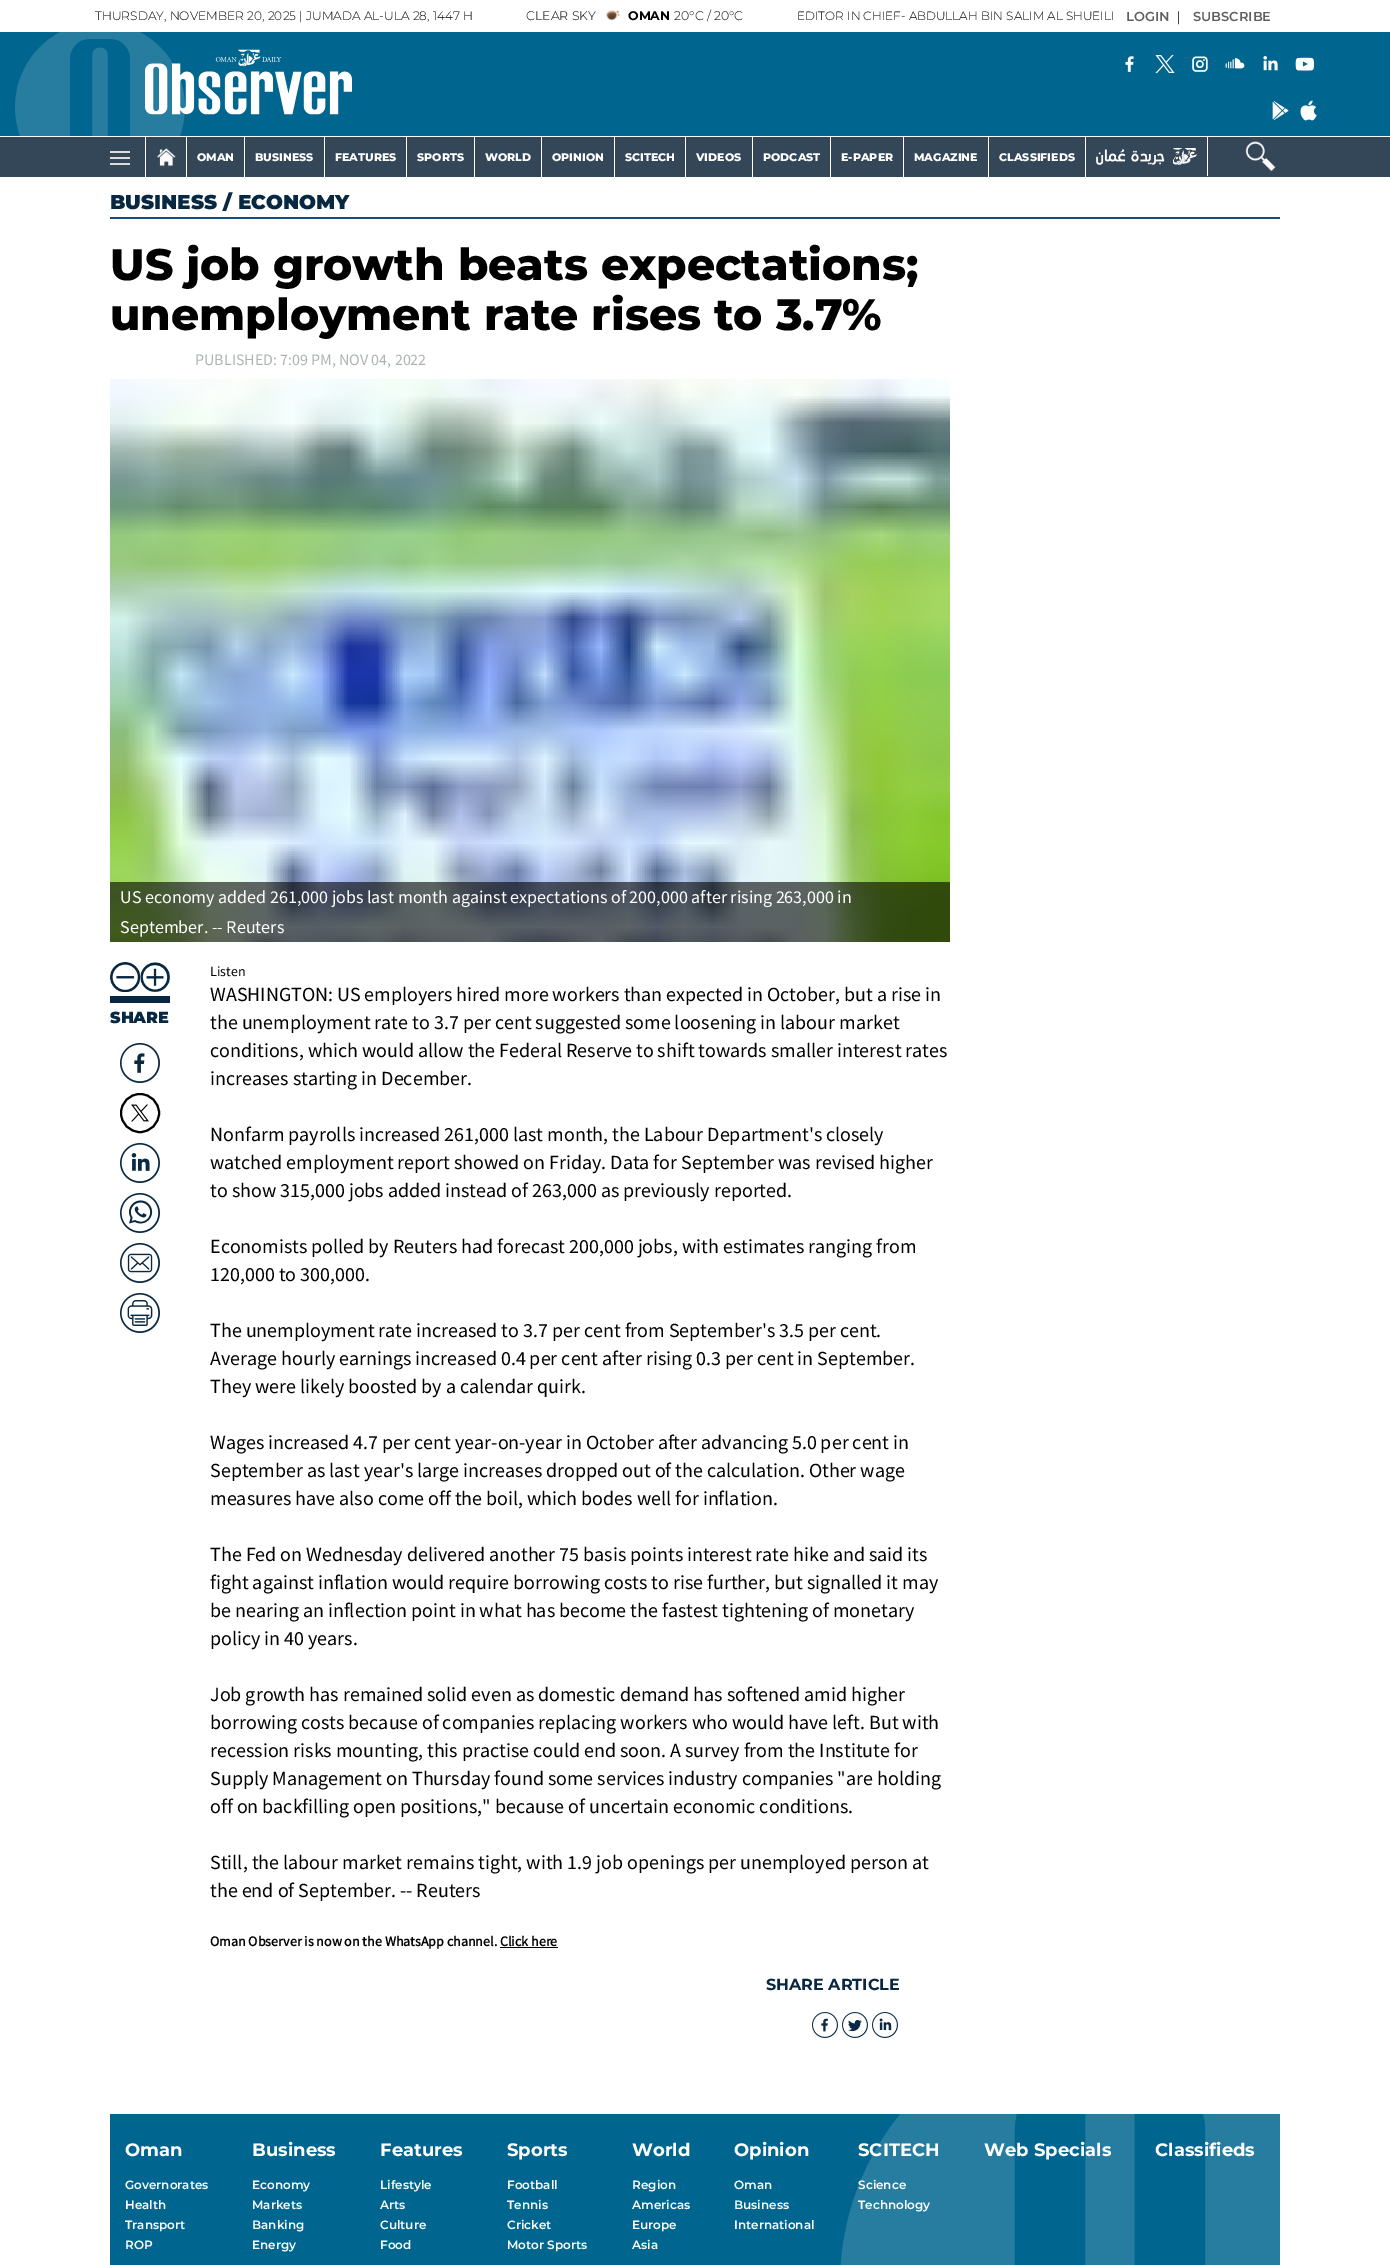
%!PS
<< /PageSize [1390 2265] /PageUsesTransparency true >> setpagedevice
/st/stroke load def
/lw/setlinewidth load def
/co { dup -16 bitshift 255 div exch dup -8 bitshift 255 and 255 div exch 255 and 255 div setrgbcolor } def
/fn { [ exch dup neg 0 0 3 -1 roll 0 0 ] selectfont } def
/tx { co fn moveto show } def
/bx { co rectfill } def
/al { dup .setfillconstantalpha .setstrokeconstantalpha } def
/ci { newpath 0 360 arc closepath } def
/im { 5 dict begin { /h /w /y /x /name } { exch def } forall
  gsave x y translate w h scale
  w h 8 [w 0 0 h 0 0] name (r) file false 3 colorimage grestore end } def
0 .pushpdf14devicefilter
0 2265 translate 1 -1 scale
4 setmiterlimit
0 0 1390 2265 16#FFFFFF bx
(media/1.raw) 606 9 14 12 im
0 32 1390 104 16#00668F bx
(media/2.raw) 15 32 170 104 im
(media/3.raw) 145 49 207 66 im
(media/4.raw) 1125 56 9 16 im
(media/5.raw) 1155 55 20 18 im
(media/6.raw) 1192 56 16 16 im
(media/7.raw) 1225 58 20 11 im
(media/8.raw) 1263 56 15 15 im
(media/9.raw) 1295 57 19 14 im
(media/10.raw) 1272 101 17 19 im
(media/11.raw) 1300 100 17 21 im
0 137 1390 40 16#344758 bx
145 137 1 40 16#FFFFFF bx
110 151 20 2 16#DDDDDD bx
110 163 20 2 16#DDDDDD bx
110 157 20 2 16#DDDDDD bx
186 137 1 40 16#FFFFFF bx
(media/12.raw) 157 148 19 19 im
244 137 1 40 16#FFFFFF bx
324 137 1 40 16#FFFFFF bx
406 137 1 40 16#FFFFFF bx
474 137 1 40 16#FFFFFF bx
541 137 1 40 16#FFFFFF bx
614 137 1 40 16#FFFFFF bx
685 137 1 40 16#FFFFFF bx
752 137 1 40 16#FFFFFF bx
830 137 1 40 16#FFFFFF bx
903 137 1 40 16#FFFFFF bx
988 137 1 40 16#FFFFFF bx
1085 137 1 40 16#FFFFFF bx
1207 137 1 39 16#FFFFFF bx
(media/13.raw) 1096 148 101 17 im
(media/14.raw) 1245 141 31 31 im
110 217 1170 2 16#0E4D81 bx
(media/15.raw) 110 379 840 563 im
0.6 al
110 882 840 60 16#000000 bx
1 al
(media/16.raw) 110 962 30 30 im
(media/17.raw) 140 962 30 30 im
110 996 60 7 16#082841 bx
(media/18.raw) 120 1043 40 40 im
16#000000 co
2 lw
140 1113 19 ci st
(media/19.raw) 131 1104 18 18 im
(media/20.raw) 120 1143 40 40 im
(media/21.raw) 120 1193 40 40 im
(media/22.raw) 120 1243 40 40 im
(media/23.raw) 120 1293 40 40 im
500 1947 58 1 16#000000 bx
(media/24.raw) 812 2012 26 26 im
(media/25.raw) 842 2012 26 26 im
(media/26.raw) 872 2012 26 26 im
110 2114 1170 151 16#00668F bx
(media/27.raw) 840 2114 440 151 im
(THURSDAY, NOVEMBER 20, 2025 | JUMADA AL-ULA 28, 1447 H) 95 20 /Montserrat-Light 12.2 16#000000 tx
(CLEAR SKY) 526 20 /Montserrat-Light 12.5 16#000000 tx
(OMAN) 628 20 /Montserrat-Bold 12.5 16#000000 tx
(20°C / 20°C) 674 20 /Montserrat-Light 12.5 16#000000 tx
(EDITOR IN CHIEF- ABDULLAH BIN SALIM AL SHUEILI) 797 20 /Montserrat-Light 12 16#000000 tx
(LOGIN) 1126 21 /Montserrat-SemiBold 13 16#615D60 tx
(|) 1177 21 /SourceSansPro-Regular 13 16#000000 tx
(SUBSCRIBE) 1193 21 /Montserrat-SemiBold 13 16#615D60 tx
(OMAN) 197 161 /Montserrat-ExtraBold 11 16#FFFFFF tx
(BUSINESS) 255 161 /Montserrat-ExtraBold 11 16#FFFFFF tx
(FEATURES) 335 161 /Montserrat-ExtraBold 11 16#FFFFFF tx
(SPORTS) 417 161 /Montserrat-ExtraBold 11 16#FFFFFF tx
(WORLD) 485 161 /Montserrat-ExtraBold 11 16#FFFFFF tx
(OPINION) 552 161 /Montserrat-ExtraBold 11 16#FFFFFF tx
(SCITECH) 625 161 /Montserrat-ExtraBold 11 16#FFFFFF tx
(VIDEOS) 696 161 /Montserrat-ExtraBold 11 16#FFFFFF tx
(PODCAST) 763 161 /Montserrat-ExtraBold 11 16#FFFFFF tx
(E-PAPER) 841 161 /Montserrat-ExtraBold 11 16#FFFFFF tx
(MAGAZINE) 914 161 /Montserrat-ExtraBold 11 16#FFFFFF tx
(CLASSIFIEDS) 999 161 /Montserrat-ExtraBold 11 16#FFFFFF tx
(BUSINESS / ECONOMY) 110 209 /Montserrat-Black 20 16#082841 tx
(US job growth beats expectations;) 110 280 /Montserrat-ExtraBold 44 16#000000 tx
(unemployment rate rises to 3.7%) 110 330 /Montserrat-ExtraBold 44 16#000000 tx
(PUBLISHED: 7:09 PM, NOV 04, 2022) 195 365 /SourceSansPro-Regular 16 16#ADB3B1 tx
(US economy added 261,000 jobs last month against expectations of 200,000 after rising 263,000 in) 120 903 /SourceSansPro-Regular 18 16#FFFFFF tx
(September. -- Reuters) 120 933 /SourceSansPro-Regular 18 16#FFFFFF tx
(SHARE) 110 1023 /Montserrat-Black 16 16#082841 tx
(Listen) 210 976 /SourceSansPro-Regular 14 16#000000 tx
(WASHINGTON: US employers hired more workers than expected in October, but a rise in) 210 1001 /SourceSansPro-Regular 20 16#000000 tx
(the unemployment rate to 3.7 per cent suggested some loosening in labour market) 210 1029 /SourceSansPro-Regular 20 16#000000 tx
(conditions, which would allow the Federal Reserve to shift towards smaller interest rates) 210 1057 /SourceSansPro-Regular 20 16#000000 tx
(increases starting in December.) 210 1085 /SourceSansPro-Regular 20 16#000000 tx
(Nonfarm payrolls increased 261,000 last month, the Labour Department's closely) 210 1141 /SourceSansPro-Regular 20 16#000000 tx
(watched employment report showed on Friday. Data for September was revised higher) 210 1169 /SourceSansPro-Regular 20 16#000000 tx
(to show 315,000 jobs added instead of 263,000 as previously reported.) 210 1197 /SourceSansPro-Regular 20 16#000000 tx
(Economists polled by Reuters had forecast 200,000 jobs, with estimates ranging from) 210 1253 /SourceSansPro-Regular 20 16#000000 tx
(120,000 to 300,000.) 210 1281 /SourceSansPro-Regular 20 16#000000 tx
(The unemployment rate increased to 3.7 per cent from September's 3.5 per cent.) 210 1337 /SourceSansPro-Regular 20 16#000000 tx
(Average hourly earnings increased 0.4 per cent after rising 0.3 per cent in September.) 210 1365 /SourceSansPro-Regular 20 16#000000 tx
(They were likely boosted by a calendar quirk.) 210 1393 /SourceSansPro-Regular 20 16#000000 tx
(Wages increased 4.7 per cent year-on-year in October after advancing 5.0 per cent in) 210 1449 /SourceSansPro-Regular 20 16#000000 tx
(September as last year's large increases dropped out of the calculation. Other wage) 210 1477 /SourceSansPro-Regular 20 16#000000 tx
(measures have also come off the boil, which bodes well for inflation.) 210 1505 /SourceSansPro-Regular 20 16#000000 tx
(The Fed on Wednesday delivered another 75 basis points interest rate hike and said its) 210 1561 /SourceSansPro-Regular 20 16#000000 tx
(fight against inflation would require borrowing costs to rise further, but signalled it may) 210 1589 /SourceSansPro-Regular 20 16#000000 tx
(be nearing an inflection point in what has become the fastest tightening of monetary) 210 1617 /SourceSansPro-Regular 20 16#000000 tx
(policy in 40 years.) 210 1645 /SourceSansPro-Regular 20 16#000000 tx
(Job growth has remained solid even as domestic demand has softened amid higher) 210 1701 /SourceSansPro-Regular 20 16#000000 tx
(borrowing costs because of companies replacing workers who would have left. But with) 210 1729 /SourceSansPro-Regular 20 16#000000 tx
(recession risks mounting, this practise could end soon. A survey from the Institute for) 210 1757 /SourceSansPro-Regular 20 16#000000 tx
(Supply Management on Thursday found some services industry companies "are holding) 210 1785 /SourceSansPro-Regular 20 16#000000 tx
(off on backfilling open positions," because of uncertain economic conditions.) 210 1813 /SourceSansPro-Regular 20 16#000000 tx
(Still, the labour market remains tight, with 1.9 job openings per unemployed person at) 210 1869 /SourceSansPro-Regular 20 16#000000 tx
(the end of September. -- Reuters) 210 1897 /SourceSansPro-Regular 20 16#000000 tx
(Oman Observer is now on the WhatsApp channel. Click here) 210 1946 /SourceSansPro-Bold 14 16#000000 tx
(SHARE ARTICLE) 766 1990 /Montserrat-Bold 16 16#082841 tx
(Oman) 125 2156 /Montserrat-Bold 18 16#FFFFFF tx
(Governorates) 125 2189 /Montserrat-SemiBold 12 16#FFFFFF tx
(Health) 125 2209 /Montserrat-SemiBold 12 16#FFFFFF tx
(Transport) 125 2229 /Montserrat-SemiBold 12 16#FFFFFF tx
(ROP) 125 2249 /Montserrat-SemiBold 12 16#FFFFFF tx
(Business) 252 2156 /Montserrat-Bold 18 16#FFFFFF tx
(Economy) 252 2189 /Montserrat-SemiBold 12 16#FFFFFF tx
(Markets) 252 2209 /Montserrat-SemiBold 12 16#FFFFFF tx
(Banking) 252 2229 /Montserrat-SemiBold 12 16#FFFFFF tx
(Energy) 252 2249 /Montserrat-SemiBold 12 16#FFFFFF tx
(Features) 380 2156 /Montserrat-Bold 18 16#FFFFFF tx
(Lifestyle) 380 2189 /Montserrat-SemiBold 12 16#FFFFFF tx
(Arts) 380 2209 /Montserrat-SemiBold 12 16#FFFFFF tx
(Culture) 380 2229 /Montserrat-SemiBold 12 16#FFFFFF tx
(Food) 380 2249 /Montserrat-SemiBold 12 16#FFFFFF tx
(Sports) 507 2156 /Montserrat-Bold 18 16#FFFFFF tx
(Football) 507 2189 /Montserrat-SemiBold 12 16#FFFFFF tx
(Tennis) 507 2209 /Montserrat-SemiBold 12 16#FFFFFF tx
(Cricket) 507 2229 /Montserrat-SemiBold 12 16#FFFFFF tx
(Motor Sports) 507 2249 /Montserrat-SemiBold 12 16#FFFFFF tx
(World) 632 2156 /Montserrat-Bold 18 16#FFFFFF tx
(Region) 632 2189 /Montserrat-SemiBold 12 16#FFFFFF tx
(Americas) 632 2209 /Montserrat-SemiBold 12 16#FFFFFF tx
(Europe) 632 2229 /Montserrat-SemiBold 12 16#FFFFFF tx
(Asia) 632 2249 /Montserrat-SemiBold 12 16#FFFFFF tx
(Opinion) 734 2156 /Montserrat-Bold 18 16#FFFFFF tx
(Oman) 734 2189 /Montserrat-SemiBold 12 16#FFFFFF tx
(Business) 734 2209 /Montserrat-SemiBold 12 16#FFFFFF tx
(International) 734 2229 /Montserrat-SemiBold 12 16#FFFFFF tx
(SCITECH) 858 2156 /Montserrat-Bold 18 16#FFFFFF tx
(Science) 858 2189 /Montserrat-SemiBold 12 16#FFFFFF tx
(Technology) 858 2209 /Montserrat-SemiBold 12 16#FFFFFF tx
(Web Specials) 984 2156 /Montserrat-Bold 18 16#FFFFFF tx
(Classifieds) 1155 2156 /Montserrat-Bold 18 16#FFFFFF tx
.poppdf14devicefilter showpage
